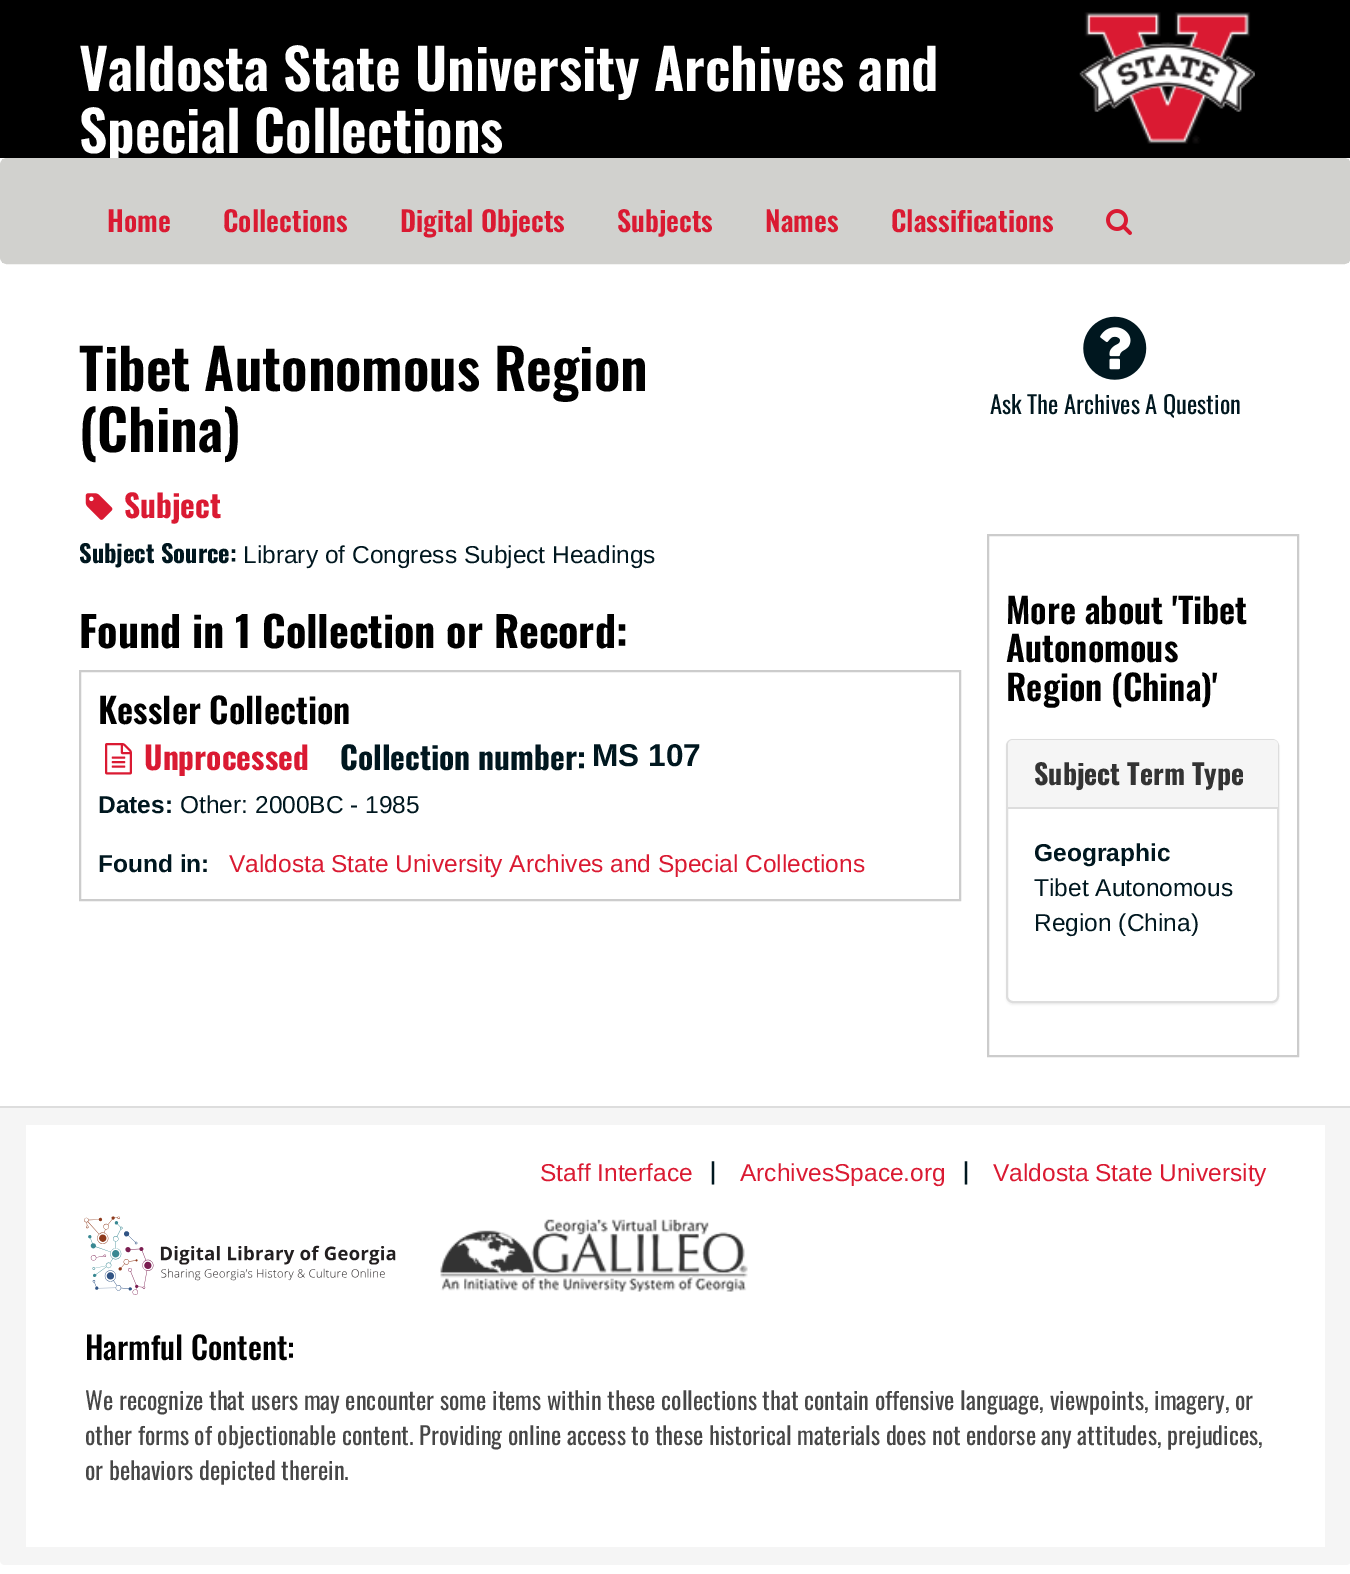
%!PS
<< /PageSize [1350 1574] /PageUsesTransparency true >> setpagedevice
/mt/moveto load def
/li/lineto load def
/ct/curveto load def
/cp/closepath load def
/fl/fill load def
/st/stroke load def
/gs/gsave load def
/gr/grestore load def
/lw/setlinewidth load def
/co { dup -16 bitshift 255 div exch dup -8 bitshift 255 and 255 div exch 255 and 255 div setrgbcolor } def
/fn { [ exch dup neg 0 0 3 -1 roll 0 0 ] selectfont } def
/tx { co fn moveto show } def
/bx { co rectfill } def
/al { dup .setfillconstantalpha .setstrokeconstantalpha } def
/rr { 5 dict begin { /r /h /w /y /x } { exch def } forall
  x r add y moveto x w add y 2 copy h add r arct x w add y h add x 1 index r arct
  x y h add x y r arct x y 2 copy exch w add exch r arct closepath end } def
/sh { 12 dict begin { /a /b /q /h /w /y /x } { exch def } forall gsave /was 0 def
  9 -2 -9 { dup b mul 4 div /e exch def 1 sub .425 mul 2.718 exch exp 1 add a .99 .min exch div /now exch def
    1 1 now sub 1 was sub div sub al /was now def
    w h .min e 2 mul add 0 gt { x e sub y e sub w e 2 mul add h e 2 mul add
      q e add b .6 mul add w h .min 2 div e add .min 0 .max rr fill } if } for grestore end } def
/im { 5 dict begin { /h /w /y /x /name } { exch def } forall
  gsave x y translate w h scale
  w h 8 [w 0 0 h 0 0] name (r) file false 3 colorimage grestore end } def
0 .pushpdf14devicefilter
0 1574 translate 1 -1 scale
4 setmiterlimit
0 0 1350 1574 16#FFFFFF bx
0 0 1350 158 16#000000 bx
(media/1.raw) 1079 12 176 132 im
(media/3.raw) 85 493 28 27 im
(media/4.raw) 1083 316 64 64 im
16#CCCCCC co
2 lw
80 671 880 229 rectstroke
(media/5.raw) 105 743 27 32 im
988 535 310 521 rectstroke
16#000000 co
1006 740 273 265 7 1 .05 sh
16#FFFFFF co
1007 740 271 262 6 rr gs fl gr
16#DDDDDD co
st
16#F5F5F5 co
1013 740 mt 1273 740 li 1276 740 1278 742 1278 745 ct 1278 807 li 1008 807 li 1008 745 li 1008 742 1010 740 1013 740 ct cp fl
1008 807 270 2 16#DDDDDD bx
16#F5F5F5 co
0 1106 mt 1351 1106 li 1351 1560 li 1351 1563 1349 1565 1346 1565 ct 5 1565 li 2 1565 0 1563 0 1560 ct cp fl
0 1106 1350 2 16#DDDDDD bx
26 1125 1299 422 16#FFFFFF bx
(media/6.raw) 84 1216 312 79 im
(media/7.raw) 440 1219 308 73 im
(Valdosta State University Archives and) 79 91 /Oswald-SemiBold 56 16#FFFFFF tx
(Special Collections) 79 153 /Oswald-SemiBold 56 16#FFFFFF tx
16#D1D1CE co
1 159 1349 104 6 rr st
2 159 1347 104 16#D1D1CE bx
(Home) 107 232 /Oswald-SemiBold 28 16#DA1A32 tx
(Collections) 223 232 /Oswald-SemiBold 28 16#DA1A32 tx
(Digital Objects) 400 232 /Oswald-SemiBold 28 16#DA1A32 tx
(Subjects) 617 232 /Oswald-SemiBold 28 16#DA1A32 tx
(Names) 765 232 /Oswald-SemiBold 28 16#DA1A32 tx
(Classifications) 891 232 /Oswald-SemiBold 28 16#DA1A32 tx
(media/2.raw) 1106 209 26 26 im
(Tibet Autonomous Region) 79 391 /Oswald-SemiBold 56 16#000000 tx
(\(China\)) 79 452 /Oswald-SemiBold 56 16#000000 tx
(Subject) 124 518 /Oswald-Bold 31.5 16#DA1A32 tx
(Ask The Archives A Question) 990 414 /Oswald-Regular 24.5 16#00171F tx
(Subject Source:) 79 563 /Oswald-Bold 24.5 16#00171F tx
(Library of Congress Subject Headings) 243 563 /LiberationSans-Regular 24.5 16#00171F tx
(Found in 1 Collection or Record:) 79 648 /Oswald-Bold 42 16#000000 tx
(Kessler Collection) 98 724 /Oswald-SemiBold 35 16#000000 tx
(Unprocessed) 144 770 /Oswald-Bold 31.5 16#DA1A32 tx
(Collection number:) 340 770 /Oswald-Bold 31.5 16#00171F tx
(MS 107) 592 766 /LiberationSans-Bold 31.5 16#00171F tx
(Dates:) 98 813 /LiberationSans-Bold 24.5 16#00171F tx
(Other: 2000BC - 1985) 180 813 /LiberationSans-Regular 24.5 16#00171F tx
(Found in:) 98 872 /LiberationSans-Bold 24.5 16#00171F tx
(Valdosta State University Archives and Special Collections) 229 872 /LiberationSans-Regular 24.5 16#DA1A32 tx
(More about 'Tibet) 1006 624 /Oswald-SemiBold 35 16#000000 tx
(Autonomous) 1006 662 /Oswald-SemiBold 35 16#000000 tx
(Region \(China\)') 1006 701 /Oswald-SemiBold 35 16#000000 tx
(Subject Term Type) 1034 785 /Oswald-Bold 28 16#333333 tx
(Geographic) 1034 861 /LiberationSans-Bold 24.5 16#00171F tx
(Tibet Autonomous) 1034 896 /LiberationSans-Regular 24.5 16#00171F tx
(Region \(China\)) 1034 931 /LiberationSans-Regular 24.5 16#00171F tx
(Staff Interface) 540 1181 /LiberationSans-Regular 24.5 16#DA1A32 tx
(|) 710 1181 /Oswald-Regular 24.5 16#00171F tx
(ArchivesSpace.org) 740 1181 /LiberationSans-Regular 24.5 16#DA1A32 tx
(|) 963 1181 /Oswald-Regular 24.5 16#00171F tx
(Valdosta State University) 993 1181 /LiberationSans-Regular 24.5 16#DA1A32 tx
(Harmful Content:) 85 1360 /Oswald-Medium 31.5 16#000000 tx
(We recognize that users may encounter some items within these collections that contain offensive language, viewpoints, imagery, or) 85 1410 /Oswald-Regular 24.5 16#474747 tx
(other forms of objectionable content. Providing online access to these historical materials does not endorse any attitudes, prejudices,) 85 1445 /Oswald-Regular 24.5 16#474747 tx
(or behaviors depicted therein.) 85 1480 /Oswald-Regular 24.5 16#474747 tx
.poppdf14devicefilter showpage
